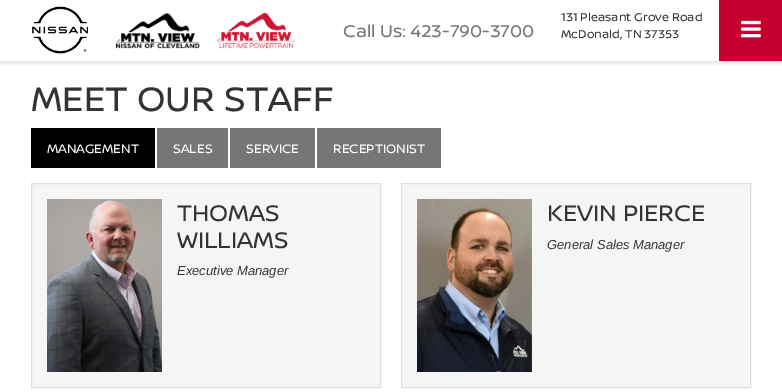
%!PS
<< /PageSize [782 392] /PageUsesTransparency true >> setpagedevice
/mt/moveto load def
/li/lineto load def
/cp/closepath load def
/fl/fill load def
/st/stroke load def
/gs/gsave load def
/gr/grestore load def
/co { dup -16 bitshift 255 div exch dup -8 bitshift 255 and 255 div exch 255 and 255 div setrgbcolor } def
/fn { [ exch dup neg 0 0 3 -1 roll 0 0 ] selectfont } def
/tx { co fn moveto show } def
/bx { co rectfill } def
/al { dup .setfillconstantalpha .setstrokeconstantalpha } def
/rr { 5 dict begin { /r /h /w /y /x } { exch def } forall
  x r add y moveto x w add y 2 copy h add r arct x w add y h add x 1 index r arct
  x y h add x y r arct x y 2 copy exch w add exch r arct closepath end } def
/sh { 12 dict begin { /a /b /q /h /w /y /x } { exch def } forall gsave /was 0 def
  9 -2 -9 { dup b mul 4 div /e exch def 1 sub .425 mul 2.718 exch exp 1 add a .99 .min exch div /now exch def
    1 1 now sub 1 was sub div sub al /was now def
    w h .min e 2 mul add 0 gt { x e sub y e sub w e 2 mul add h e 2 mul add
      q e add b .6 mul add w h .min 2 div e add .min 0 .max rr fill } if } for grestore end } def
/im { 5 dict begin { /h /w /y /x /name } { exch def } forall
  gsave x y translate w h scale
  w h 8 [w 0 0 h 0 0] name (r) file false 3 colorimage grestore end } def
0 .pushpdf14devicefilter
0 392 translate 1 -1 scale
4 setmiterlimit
0 0 782 392 16#FFFFFF bx
gs
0 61 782 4 rectclip
16#000000 co
0 3 782 61 0 1.5 .1 sh
gr
719 0 63 61 16#C3002F bx
(media/1.raw) 741 20 20 18 im
(media/2.raw) 32 6 56 48 im
(media/3.raw) 115 12 180 37 im
31 128 124 40 16#000000 bx
157 128 71 40 16#767676 bx
230 128 85 40 16#767676 bx
317 128 124 40 16#767676 bx
16#F5F5F5 co
31.5 183.5 mt 380.5 183.5 li 380.5 387.5 li 31.5 387.5 li cp gs fl gr
16#DDDDDD co
st
(media/4.raw) 47 199 115 173 im
16#F5F5F5 co
401.5 183.5 mt 750.5 183.5 li 750.5 387.5 li 401.5 387.5 li cp gs fl gr
16#DDDDDD co
st
(media/5.raw) 417 199 115 173 im
(Call Us: 423-790-3700) 343 37 /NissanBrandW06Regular-Regular 18 16#767676 tx
(131 Pleasant Grove Road) 561 21 /NissanBrandW06Regular-Regular 12 16#333333 tx
(McDonald, TN 37353) 561 38 /NissanBrandW06Regular-Regular 12 16#333333 tx
(MEET OUR STAFF) 31 111 /NissanBrandW06Regular-Regular 36 16#333333 tx
(MANAGEMENT) 47 153 /NissanBrandW06Regular-Regular 13 16#FFFFFF tx
(SALES) 173 153 /NissanBrandW06Regular-Regular 13 16#FFFFFF tx
(SERVICE) 246 153 /NissanBrandW06Regular-Regular 13 16#FFFFFF tx
(RECEPTIONIST) 333 153 /NissanBrandW06Regular-Regular 13 16#FFFFFF tx
(THOMAS) 177 221 /NissanBrandW06Regular-Regular 24 16#333333 tx
(WILLIAMS) 177 248 /NissanBrandW06Regular-Regular 24 16#333333 tx
(Executive Manager) 177 275 /LiberationSans-Italic 13 16#333333 tx
(KEVIN PIERCE) 547 221 /NissanBrandW06Regular-Regular 24 16#333333 tx
(General Sales Manager) 547 249 /LiberationSans-Italic 13 16#333333 tx
.poppdf14devicefilter showpage
